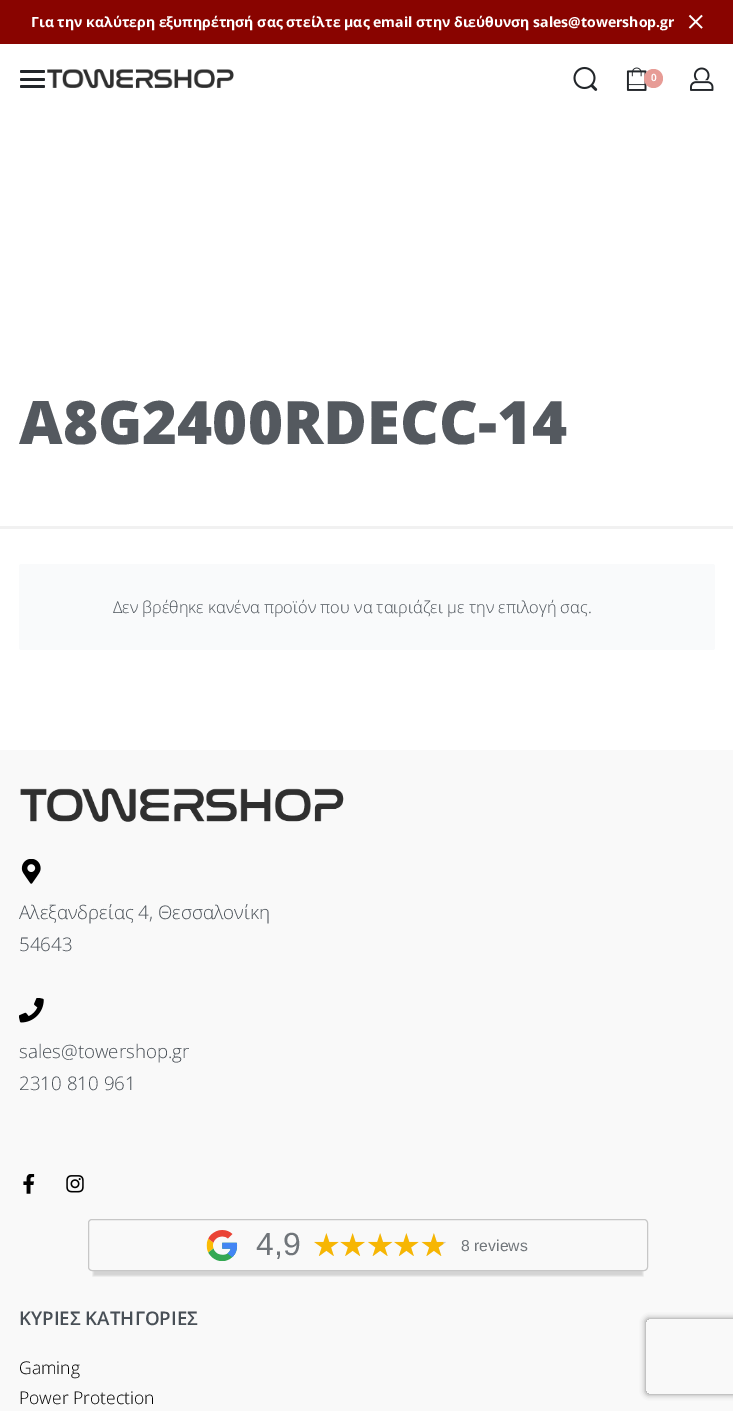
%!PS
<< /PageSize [733 1411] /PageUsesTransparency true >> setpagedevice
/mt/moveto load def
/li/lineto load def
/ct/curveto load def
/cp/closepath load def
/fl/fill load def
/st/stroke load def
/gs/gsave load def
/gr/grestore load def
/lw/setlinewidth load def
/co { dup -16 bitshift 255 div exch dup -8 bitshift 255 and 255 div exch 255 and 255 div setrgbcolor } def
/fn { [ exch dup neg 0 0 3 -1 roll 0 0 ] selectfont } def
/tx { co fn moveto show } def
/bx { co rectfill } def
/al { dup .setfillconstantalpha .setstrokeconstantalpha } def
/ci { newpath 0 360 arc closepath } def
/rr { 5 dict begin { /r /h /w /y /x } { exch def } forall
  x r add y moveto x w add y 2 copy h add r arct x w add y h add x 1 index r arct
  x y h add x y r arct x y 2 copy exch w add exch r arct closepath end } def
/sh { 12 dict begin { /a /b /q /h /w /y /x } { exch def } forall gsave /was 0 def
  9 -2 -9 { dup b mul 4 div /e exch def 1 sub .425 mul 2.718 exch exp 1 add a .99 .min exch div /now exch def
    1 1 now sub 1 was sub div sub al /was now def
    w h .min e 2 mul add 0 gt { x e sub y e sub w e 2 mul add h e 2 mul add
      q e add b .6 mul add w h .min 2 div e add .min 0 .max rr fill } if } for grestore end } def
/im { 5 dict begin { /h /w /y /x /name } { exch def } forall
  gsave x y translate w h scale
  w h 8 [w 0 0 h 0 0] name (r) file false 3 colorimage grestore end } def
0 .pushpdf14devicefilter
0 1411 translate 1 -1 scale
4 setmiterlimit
0 0 733 1411 16#FFFFFF bx
0 0 733 44 16#890400 bx
16#FFFFFF co
1.5 lw
2 setlinecap
689.5 15.5 mt 702 28 li cp 689.5 28 mt 702 15.5 li cp st
16#22262A co
20 70 25 3 1.5 rr fl
20 78 25 3 1.5 rr fl
20 85 25 3 1.5 rr fl
(media/1.raw) 47 69 187 20 im
(media/2.raw) 573 66 25 25 im
(media/3.raw) 626 67 21 24 im
16#E79C96 co
653.5 78.5 9.5 ci fl
(media/4.raw) 690 67 24 24 im
0 526 733 3 16#F1F1F1 bx
16#F9FAFB co
19 564 696 86 2.5 rr fl
0 750 733 661 16#F9F9F9 bx
(media/5.raw) 20 788 324 34 im
(media/6.raw) 21 859 20 25 im
(media/7.raw) 19 998 25 25 im
(media/8.raw) 23 1174 12 20 im
(media/9.raw) 66 1175 18 18 im
gs
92 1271 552 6 rectclip
16#000000 co
93 1234 550 42 0 1 .15 sh
gr
16#C7C7C7 co
1 lw
0 setlinecap
88.5 1219.5 559 51 3.5 rr st
(media/10.raw) 206 1230 32 31 im
(media/16.raw) 315 1234 23 22 im
(media/11.raw) 314 1233 25 23 im
(media/17.raw) 341 1234 24 22 im
(media/12.raw) 340 1233 25 23 im
(media/18.raw) 369 1234 23 22 im
(media/13.raw) 368 1233 25 23 im
(media/19.raw) 395 1234 23 22 im
(media/14.raw) 394 1233 25 23 im
(media/20.raw) 422 1234 23 22 im
(media/15.raw) 421 1233 25 23 im
gs
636 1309 mt 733 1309 li 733 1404 li 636 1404 li cp 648.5 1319 mt 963.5 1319 li 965 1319 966 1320 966 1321.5 ct 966 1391.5 li 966 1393 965 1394 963.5 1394 ct 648.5 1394 li 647 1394 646 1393 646 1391.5 ct 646 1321.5 li 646 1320 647 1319 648.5 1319 ct cp eoclip newpath
16#808080 co
646 1319 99 75 2.5 3 1 sh
gr
(Για την καλύτερη εξυπηρέτησή σας στείλτε μας email στην διεύθυνση sales@towershop.gr) 31 27 /OpenSans-Bold 14.05 16#FFFFFF tx
(0) 651 81 /Roboto-SemiBold 10 16#FFFFFF tx
(A8G2400RDECC-14) 19 444 /OpenSans-ExtraBold 60 16#54595F tx
(Δεν βρέθηκε κανένα προϊόν που να ταιριάζει με την επιλογή σας.) 113 613 /OpenSans-Light 16.4 16#484F56 tx
(Αλεξανδρείας 4, Θεσσαλονίκη) 19 919 /OpenSans-Light 18.75 16#484F56 tx
(54643) 19 951 /OpenSans-Light 18.75 16#484F56 tx
(sales@towershop.gr) 19 1058 /OpenSans-Light 18.75 16#484F56 tx
(2310 810 961) 19 1090 /OpenSans-Light 18.75 16#484F56 tx
(4,9) 256 1255 /LiberationSans-Regular 32 16#70757A tx
(8 reviews) 461 1251 /LiberationSans-Regular 15.75 16#70757A tx
(ΚΥΡΙΕΣ ΚΑΤΗΓΟΡΙΕΣ) 19 1325 /OpenSans-SemiBold 18.75 16#484F56 tx
(Gaming) 19 1374 /OpenSans-Light 17.5 16#000000 tx
(Power Protection) 19 1404 /OpenSans-Light 17.5 16#000000 tx
.poppdf14devicefilter showpage
